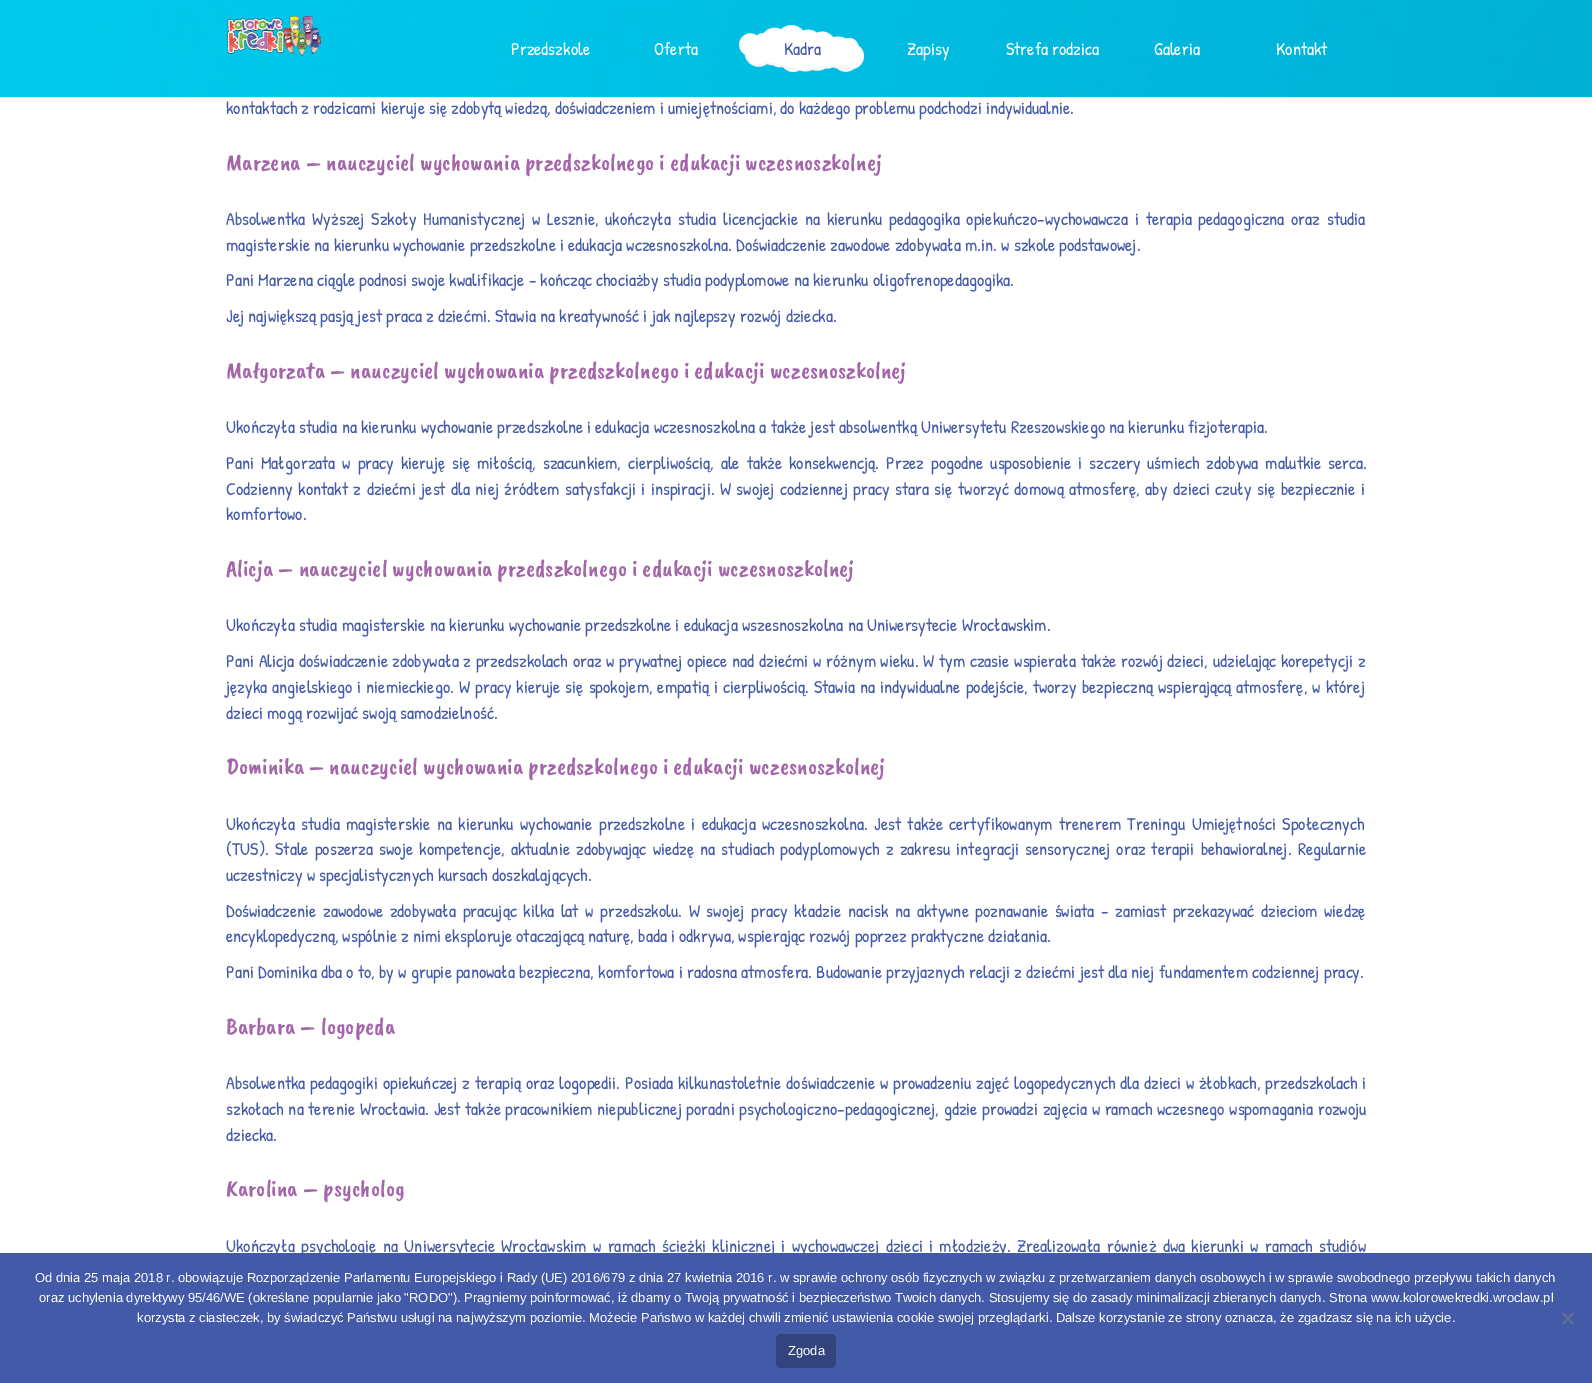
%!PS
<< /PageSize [1592 1383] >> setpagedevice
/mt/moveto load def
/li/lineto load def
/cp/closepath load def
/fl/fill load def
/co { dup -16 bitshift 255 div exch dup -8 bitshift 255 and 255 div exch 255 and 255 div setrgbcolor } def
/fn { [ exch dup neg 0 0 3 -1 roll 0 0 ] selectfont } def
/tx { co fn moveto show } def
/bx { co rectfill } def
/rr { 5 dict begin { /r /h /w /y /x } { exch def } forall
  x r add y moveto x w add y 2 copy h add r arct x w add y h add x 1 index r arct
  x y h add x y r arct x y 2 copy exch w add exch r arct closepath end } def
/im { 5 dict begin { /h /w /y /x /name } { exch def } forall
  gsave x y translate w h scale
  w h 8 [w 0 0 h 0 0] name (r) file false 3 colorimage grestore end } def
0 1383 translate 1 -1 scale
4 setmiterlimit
0 0 1592 1383 16#FFFFFF bx
(media/1.raw) 0 0 1592 97 im
(media/2.raw) 227 16 94 40 im
(media/3.raw) 739 25 125 47 im
0 1253 1592 130 16#435AA8 bx
16#626D94 co
1572.5 1312.5 mt 1574 1314 li 1563.5 1324.5 li 1562 1323 li cp fl
1562 1314 mt 1563.5 1312.5 li 1574 1323 li 1572.5 1324.5 li cp fl
16#32447E co
776 1334 60 34 5 rr fl
(Przedszkole) 511 55 /PatrickHand-Regular 18 16#FFFFFF tx
(Oferta) 654 55 /PatrickHand-Regular 18 16#FFFFFF tx
(Kadra) 784 55 /PatrickHand-Regular 18 16#435AA8 tx
(Zapisy) 907 55 /PatrickHand-Regular 18 16#FFFFFF tx
(Strefa rodzica) 1006 55 /PatrickHand-Regular 18 16#FFFFFF tx
(Galeria) 1154 55 /PatrickHand-Regular 18 16#FFFFFF tx
(Kontakt) 1276 55 /PatrickHand-Regular 18 16#FFFFFF tx
(kontaktach z rodzicami kieruje się zdobytą wiedzą, doświadczeniem i umiejętnościami, do każdego problemu podchodzi indywidualnie.) 226 114 /PatrickHand-Regular 18 16#435AA8 tx
(Marzena – nauczyciel wychowania przedszkolnego i edukacji wczesnoszkolnej) 226 170 /CaveatBrush-Regular 24 16#A466AA tx
/PatrickHand-Regular 18 fn
16#435AA8 co
226 225 mt 2.6 0 32 (Absolwentka Wyższej Szkoły Humanistycznej w Lesznie, ukończyła studia licencjackie na kierunku pedagogika opiekuńczo–wychowawcza i terapia pedagogiczna oraz studia) widthshow
(magisterskie na kierunku wychowanie przedszkolne i edukacja wczesnoszkolna. Doświadczenie zawodowe zdobywała m.in. w szkole podstawowej.) 226 251 /PatrickHand-Regular 18 16#435AA8 tx
(Pani Marzena ciągle podnosi swoje kwalifikacje – kończąc chociażby studia podyplomowe na kierunku oligofrenopedagogika.) 226 286 /PatrickHand-Regular 18 16#435AA8 tx
(Jej największą pasją jest praca z dziećmi. Stawia na kreatywność i jak najlepszy rozwój dziecka.) 226 322 /PatrickHand-Regular 18 16#435AA8 tx
(Małgorzata – nauczyciel wychowania przedszkolnego i edukacji wczesnoszkolnej) 226 378 /CaveatBrush-Regular 24 16#A466AA tx
(Ukończyła studia na kierunku wychowanie przedszkolne i edukacja wczesnoszkolna a także jest absolwentką Uniwersytetu Rzeszowskiego na kierunku fizjoterapia.) 226 433 /PatrickHand-Regular 18 16#435AA8 tx
226 469 mt 2.75 0 32 (Pani Małgorzata w pracy kieruję się miłością, szacunkiem, cierpliwością, ale także konsekwencją. Przez pogodne usposobienie i szczery uśmiech zdobywa malutkie serca.) widthshow
226 495 mt 1.3 0 32 (Codzienny kontakt z dziećmi jest dla niej źródłem satysfakcji i inspiracji. W swojej codziennej pracy stara się tworzyć domową atmosferę, aby dzieci czuły się bezpiecznie i) widthshow
(komfortowo.) 226 520 /PatrickHand-Regular 18 16#435AA8 tx
(Alicja – nauczyciel wychowania przedszkolnego i edukacji wczesnoszkolnej) 226 576 /CaveatBrush-Regular 24 16#A466AA tx
(Ukończyła studia magisterskie na kierunku wychowanie przedszkolne i edukacja wszesnoszkolna na Uniwersytecie Wrocławskim.) 226 631 /PatrickHand-Regular 18 16#435AA8 tx
226 667 mt .55 0 32 (Pani Alicja doświadczenie zdobywała z przedszkolach oraz w prywatnej opiece nad dziećmi w różnym wieku. W tym czasie wspierała także rozwój dzieci, udzielając korepetycji z) widthshow
226 693 mt .9 0 32 (języka angielskiego i niemieckiego. W pracy kieruje się spokojem, empatią i cierpliwością. Stawia na indywidualne podejście, tworzy bezpieczną wspierającą atmosferę, w której) widthshow
(dzieci mogą rozwijać swoją samodzielność.) 226 719 /PatrickHand-Regular 18 16#435AA8 tx
(Dominika – nauczyciel wychowania przedszkolnego i edukacji wczesnoszkolnej) 226 774 /CaveatBrush-Regular 24 16#A466AA tx
/PatrickHand-Regular 18 fn
16#435AA8 co
226 830 mt 2.25 0 32 (Ukończyła studia magisterskie na kierunku wychowanie przedszkolne i edukacja wczesnoszkolna. Jest także certyfikowanym trenerem Treningu Umiejętności Społecznych) widthshow
226 855 mt 2 0 32 (\(TUS\). Stale poszerza swoje kompetencje, aktualnie zdobywając wiedzę na studiach podyplomowych z zakresu integracji sensorycznej oraz terapii behawioralnej. Regularnie) widthshow
(uczestniczy w specjalistycznych kursach doszkalających.) 226 881 /PatrickHand-Regular 18 16#435AA8 tx
226 917 mt 2.5 0 32 (Doświadczenie zawodowe zdobywała pracując kilka lat w przedszkolu. W swojej pracy kładzie nacisk na aktywne poznawanie świata – zamiast przekazywać dzieciom wiedzę) widthshow
(encyklopedyczną, wspólnie z nimi eksploruje otaczającą naturę, bada i odkrywa, wspierając rozwój poprzez praktyczne działania.) 226 942 /PatrickHand-Regular 18 16#435AA8 tx
(Pani Dominika dba o to, by w grupie panowała bezpieczna, komfortowa i radosna atmosfera. Budowanie przyjaznych relacji z dziećmi jest dla niej fundamentem codziennej pracy.) 226 978 /PatrickHand-Regular 18 16#435AA8 tx
(Barbara – logopeda) 226 1034 /CaveatBrush-Regular 24 16#A466AA tx
/PatrickHand-Regular 18 fn
16#435AA8 co
226 1089 mt .6 0 32 (Absolwentka pedagogiki opiekuńczej z terapią oraz logopedii. Posiada kilkunastoletnie doświadczenie w prowadzeniu zajęć logopedycznych dla dzieci w żłobkach, przedszkolach i) widthshow
226 1115 mt .5 0 32 (szkołach na terenie Wrocławia. Jest także pracownikiem niepublicznej poradni psychologiczno–pedagogicznej, gdzie prowadzi zajęcia w ramach wczesnego wspomagania rozwoju) widthshow
(dziecka.) 226 1141 /PatrickHand-Regular 18 16#435AA8 tx
(Karolina – psycholog) 226 1196 /CaveatBrush-Regular 24 16#A466AA tx
/PatrickHand-Regular 18 fn
16#435AA8 co
226 1252 mt 2.25 0 32 (Ukończyła psychologię na Uniwersytecie Wrocławskim w ramach ścieżki klinicznej i wychowawczej dzieci i młodzieży. Zrealizowała również dwa kierunki w ramach studiów) widthshow
(Od dnia 25 maja 2018 r. obowiązuje Rozporządzenie Parlamentu Europejskiego i Rady \(UE\) 2016/679 z dnia 27 kwietnia 2016 r. w sprawie ochrony osób fizycznych w związku z przetwarzaniem danych osobowych i w sprawie swobodnego przepływu takich danych) 35 1282 /LiberationSans-Regular 13 16#FFFFFF tx
(oraz uchylenia dyrektywy 95/46/WE \(określane popularnie jako "RODO"\). Pragniemy poinformować, iż dbamy o Twoją prywatność i bezpieczeństwo Twoich danych. Stosujemy się do zasady minimalizacji zbieranych danych. Strona www.kolorowekredki.wroclaw.pl) 39 1302 /LiberationSans-Regular 13 16#FFFFFF tx
(korzysta z ciasteczek, by świadczyć Państwu usługi na najwyższym poziomie. Możecie Państwo w każdej chwili zmienić ustawienia cookie swojej przeglądarki. Dalsze korzystanie ze strony oznacza, że zgadzasz się na ich użycie.) 137 1322 /LiberationSans-Regular 13 16#FFFFFF tx
(Zgoda) 788 1355 /LiberationSans-Regular 13 16#FFFFFF tx
showpage
